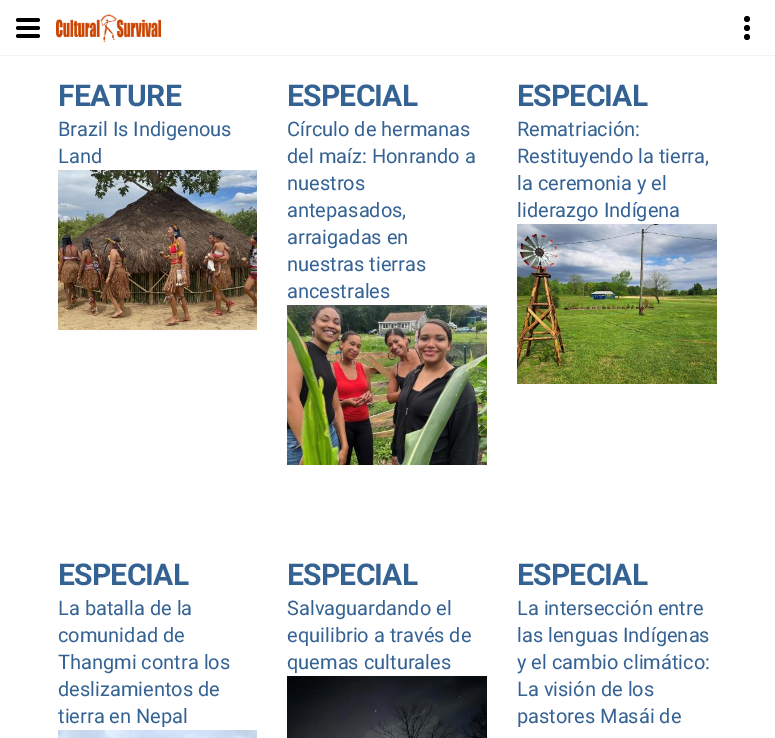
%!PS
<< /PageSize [775 738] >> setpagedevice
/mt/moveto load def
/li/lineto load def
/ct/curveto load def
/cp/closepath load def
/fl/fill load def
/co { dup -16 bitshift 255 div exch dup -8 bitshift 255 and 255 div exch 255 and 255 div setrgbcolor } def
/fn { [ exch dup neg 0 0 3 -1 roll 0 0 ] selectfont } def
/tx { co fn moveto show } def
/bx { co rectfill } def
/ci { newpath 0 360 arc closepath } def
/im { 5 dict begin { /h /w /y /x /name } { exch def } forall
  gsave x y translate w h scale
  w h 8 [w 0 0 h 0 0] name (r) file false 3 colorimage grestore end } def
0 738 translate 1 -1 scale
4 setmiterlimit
0 0 775 738 16#FFFFFF bx
16#000000 co
38 30 mt 18 30 li 17 30 16 29 16 28 ct 16 27 17 26 18 26 ct 38 26 li 39 26 40 27 40 28 ct 40 29 39 30 38 30 ct cp 38 38 mt 18 38 li 17 38 16 37 16 36 ct 16 35 17 34 18 34 ct 38 34 li 39 34 40 35 40 36 ct 40 37 39 38 38 38 ct cp 38 22 mt 18 22 li 17 22 16 21 16 20 ct 16 19 17 18 18 18 ct 38 18 li 39 18 40 19 40 20 ct 40 21 39 22 38 22 ct cp fl
(media/1.raw) 56 14 105 28 im
0 55 775 1 16#F2F3F8 bx
16#000000 co
747 28 3 ci fl
747 19 3 ci fl
747 37 3 ci fl
(media/2.raw) 58 170 199 160 im
(media/3.raw) 287 305 200 160 im
(media/4.raw) 517 224 200 160 im
(media/5.raw) 58 730 199 8 im
(media/6.raw) 287 676 200 62 im
/Roboto-Bold 30 fn
16#346293 co
58 106 mt -.75 0 (FEATURE) ashow
(Brazil Is Indigenous) 58 136 /Roboto-Regular 20 16#346293 tx
(Land) 58 163 /Roboto-Regular 20 16#346293 tx
/Roboto-Bold 30 fn
287 106 mt -.75 0 (ESPECIAL) ashow
(Círculo de hermanas) 287 136 /Roboto-Regular 20 16#346293 tx
(del maíz: Honrando a) 287 163 /Roboto-Regular 20 16#346293 tx
(nuestros) 287 190 /Roboto-Regular 20 16#346293 tx
(antepasados,) 287 217 /Roboto-Regular 20 16#346293 tx
(arraigadas en) 287 244 /Roboto-Regular 20 16#346293 tx
(nuestras tierras) 287 271 /Roboto-Regular 20 16#346293 tx
(ancestrales) 287 298 /Roboto-Regular 20 16#346293 tx
/Roboto-Bold 30 fn
517 106 mt -.75 0 (ESPECIAL) ashow
(Rematriación:) 517 136 /Roboto-Regular 20 16#346293 tx
(Restituyendo la tierra,) 517 163 /Roboto-Regular 20 16#346293 tx
(la ceremonia y el) 517 190 /Roboto-Regular 20 16#346293 tx
(liderazgo Indígena) 517 217 /Roboto-Regular 20 16#346293 tx
/Roboto-Bold 30 fn
58 585 mt -.75 0 (ESPECIAL) ashow
(La batalla de la) 58 615 /Roboto-Regular 20 16#346293 tx
(comunidad de) 58 642 /Roboto-Regular 20 16#346293 tx
(Thangmi contra los) 58 669 /Roboto-Regular 20 16#346293 tx
(deslizamientos de) 58 696 /Roboto-Regular 20 16#346293 tx
(tierra en Nepal) 58 723 /Roboto-Regular 20 16#346293 tx
/Roboto-Bold 30 fn
287 585 mt -.75 0 (ESPECIAL) ashow
(Salvaguardando el) 287 615 /Roboto-Regular 20 16#346293 tx
(equilibrio a través de) 287 642 /Roboto-Regular 20 16#346293 tx
(quemas culturales) 287 669 /Roboto-Regular 20 16#346293 tx
/Roboto-Bold 30 fn
517 585 mt -.75 0 (ESPECIAL) ashow
(La intersección entre) 517 615 /Roboto-Regular 20 16#346293 tx
(las lenguas Indígenas) 517 642 /Roboto-Regular 20 16#346293 tx
(y el cambio climático:) 517 669 /Roboto-Regular 20 16#346293 tx
(La visión de los) 517 696 /Roboto-Regular 20 16#346293 tx
(pastores Masái de) 517 723 /Roboto-Regular 20 16#346293 tx
showpage
